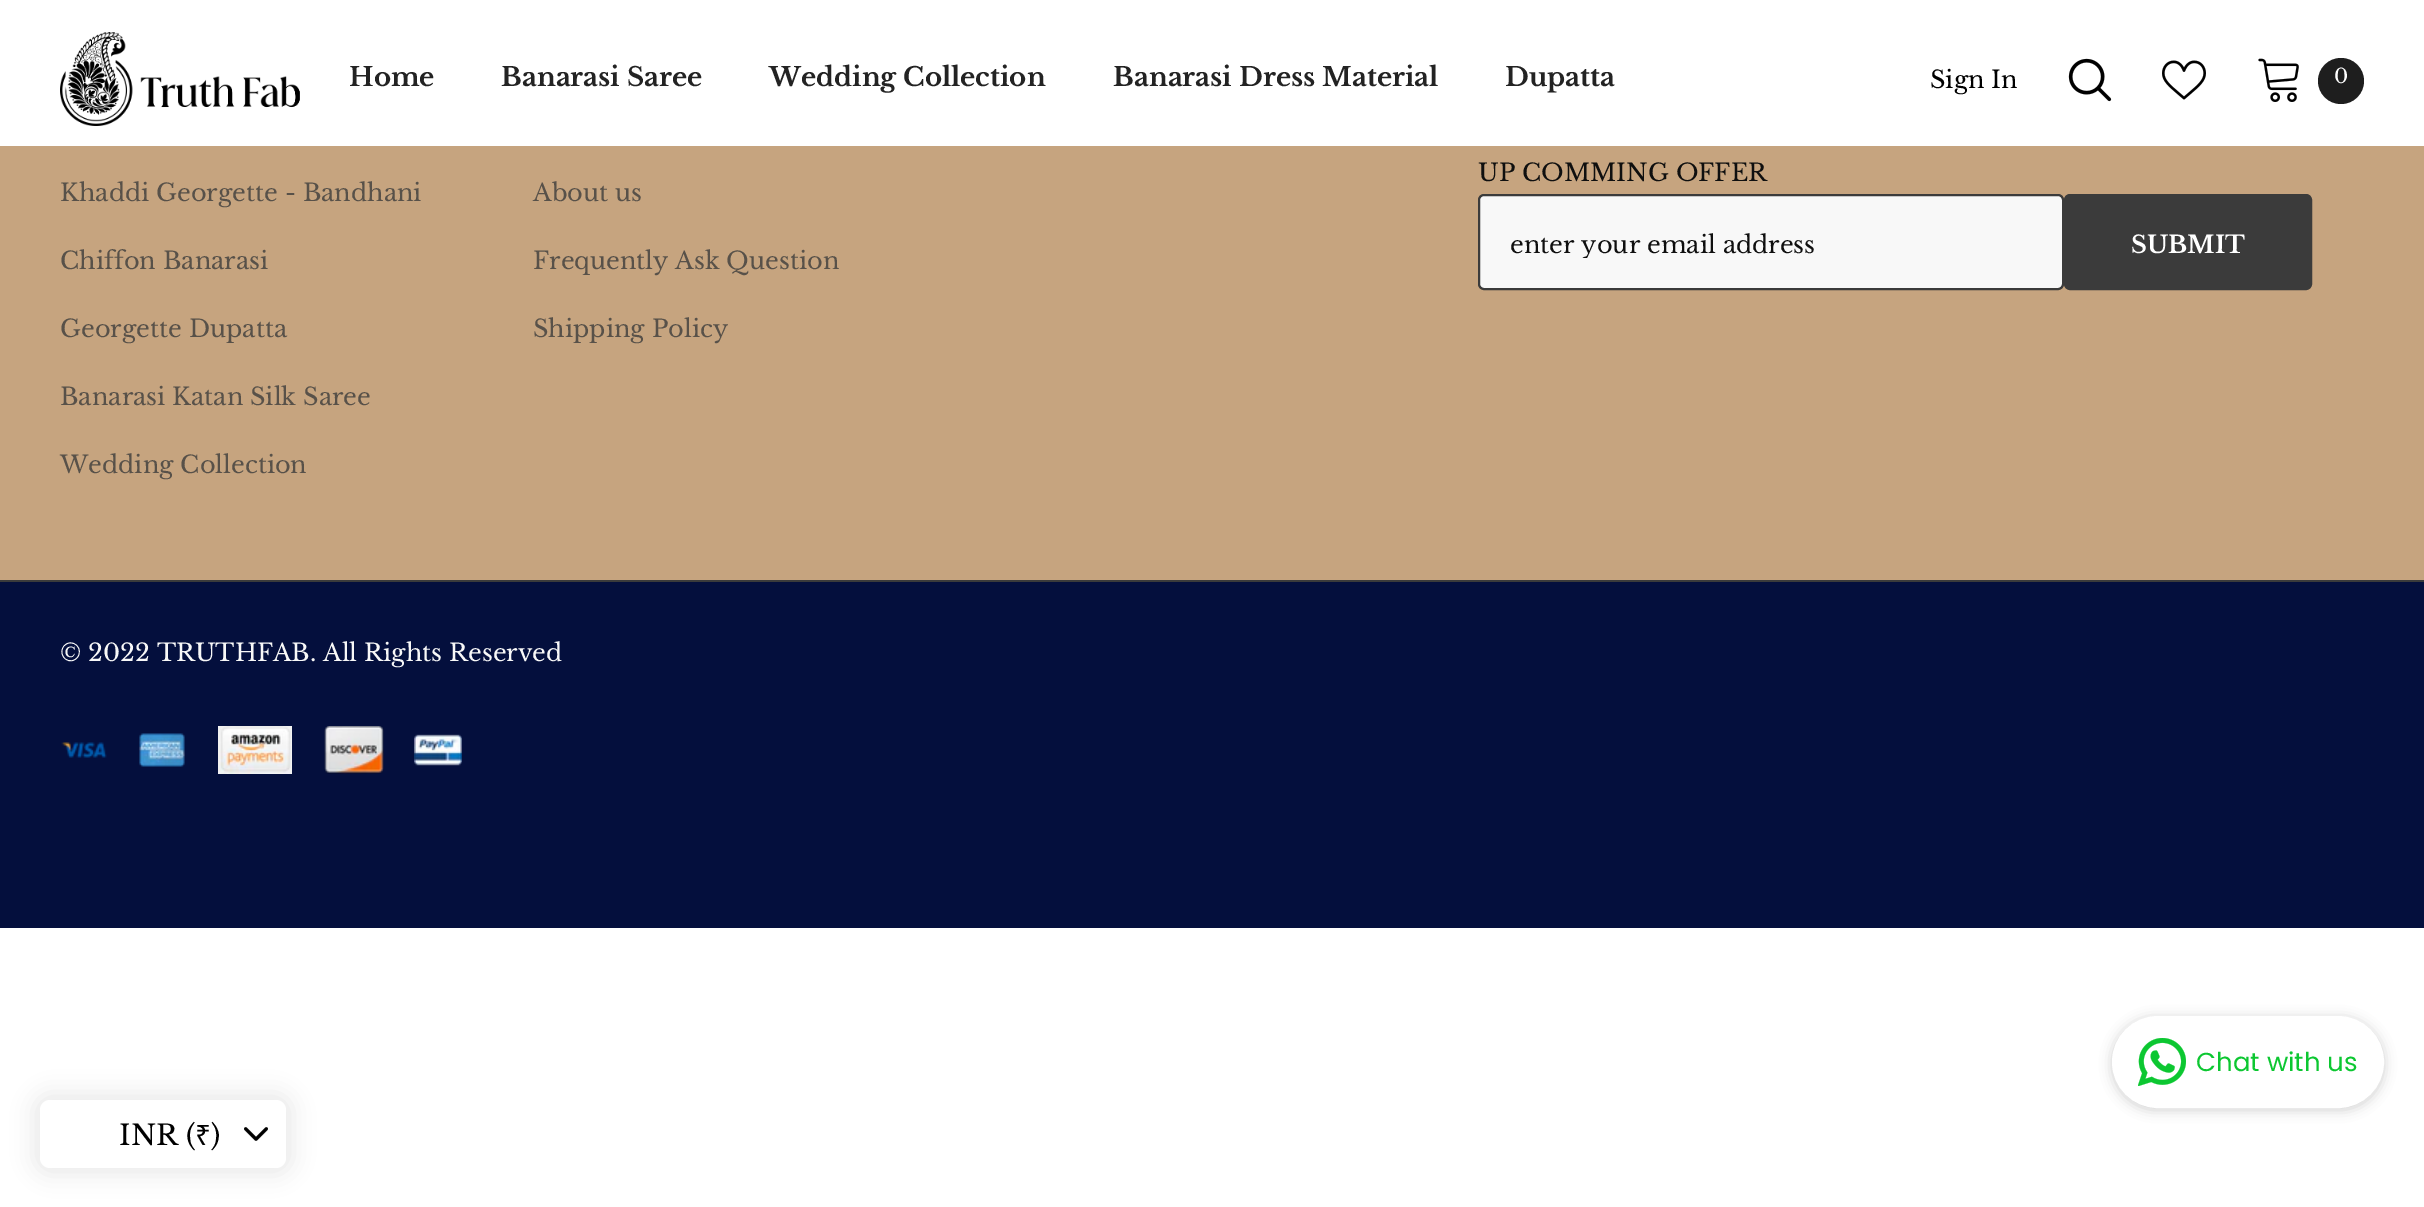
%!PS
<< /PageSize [2424 1207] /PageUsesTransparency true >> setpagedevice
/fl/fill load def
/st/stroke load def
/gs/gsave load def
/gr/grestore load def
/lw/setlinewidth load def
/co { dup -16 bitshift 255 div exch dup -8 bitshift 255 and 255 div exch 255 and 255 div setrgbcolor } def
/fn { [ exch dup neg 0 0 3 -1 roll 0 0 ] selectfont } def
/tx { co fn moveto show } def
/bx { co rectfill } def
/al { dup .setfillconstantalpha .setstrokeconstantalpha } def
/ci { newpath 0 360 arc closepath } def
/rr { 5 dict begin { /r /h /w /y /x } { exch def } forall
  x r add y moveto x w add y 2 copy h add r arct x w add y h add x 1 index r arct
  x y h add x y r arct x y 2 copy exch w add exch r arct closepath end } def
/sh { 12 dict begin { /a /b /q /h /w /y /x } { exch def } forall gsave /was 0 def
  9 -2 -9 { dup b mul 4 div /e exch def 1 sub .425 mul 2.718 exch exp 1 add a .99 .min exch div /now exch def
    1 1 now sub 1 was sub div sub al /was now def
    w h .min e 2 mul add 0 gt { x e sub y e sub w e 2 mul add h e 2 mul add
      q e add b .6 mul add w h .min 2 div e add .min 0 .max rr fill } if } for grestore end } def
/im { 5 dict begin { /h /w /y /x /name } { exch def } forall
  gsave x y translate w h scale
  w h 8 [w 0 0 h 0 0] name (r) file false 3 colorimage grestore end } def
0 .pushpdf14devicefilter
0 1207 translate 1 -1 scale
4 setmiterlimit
0 0 2424 1207 16#FFFFFF bx
(media/1.raw) 60 32 240 94 im
(media/2.raw) 2068 58 44 44 im
(media/3.raw) 2162 60 44 40 im
(media/4.raw) 2258 58 41 44 im
16#1E1E1E co
2341 81 23 ci fl
0 146 2424 434 16#C6A47F bx
16#F8F8F8 co
1479 195 584 94 5 rr gs fl gr
16#3B3B3B co
2 lw
st
2065 195 246 94 5 rr gs fl gr
st
0 582 2424 346 16#040F3D bx
0 580 2424 2 16#3B3B3B bx
(media/5.raw) 61 742 46 16 im
(media/6.raw) 139 733 46 34 im
(media/7.raw) 218 726 74 48 im
(media/8.raw) 324 726 60 48 im
(media/9.raw) 414 734 48 32 im
16#1B1B1B co
2112 1018 272 92 46 6 .2 sh
16#FFFFFF co
2113 1017 270 90 45 rr gs fl gr
st
(media/10.raw) 2138 1038 48 48 im
16#3C3C3C co
32 1092 262 84 18 10 .09 sh
16#FFFFFF co
40 1100 246 68 10 rr fl
(media/11.raw) 244 1127 24 14 im
(Home) 349 86 /LibreBaskerville-Bold 26 16#232323 tx
(Banarasi Saree) 501 86 /LibreBaskerville-Bold 26 16#232323 tx
(Wedding Collection) 769 86 /LibreBaskerville-Bold 26 16#232323 tx
(Banarasi Dress Material) 1113 86 /LibreBaskerville-Bold 26 16#232323 tx
(Dupatta) 1505 86 /LibreBaskerville-Bold 26 16#232323 tx
(Sign In) 1930 88 /LibreBaskerville-Regular 24 16#000000 tx
(0) 2334 83 /LibreBaskerville-Regular 20 16#FFFFFF tx
(Khaddi Georgette - Bandhani) 60 201 /LibreBaskerville-Regular 24 16#585149 tx
(Chiffon Banarasi) 60 269 /LibreBaskerville-Regular 24 16#585149 tx
(Georgette Dupatta) 60 337 /LibreBaskerville-Regular 24 16#585149 tx
(Banarasi Katan Silk Saree) 60 405 /LibreBaskerville-Regular 24 16#585149 tx
(Wedding Collection) 60 473 /LibreBaskerville-Regular 24 16#585149 tx
(About us) 533 201 /LibreBaskerville-Regular 24 16#585149 tx
(Frequently Ask Question) 533 269 /LibreBaskerville-Regular 24 16#585149 tx
(Shipping Policy) 533 337 /LibreBaskerville-Regular 24 16#585149 tx
(UP COMMING OFFER) 1478 181 /LibreBaskerville-Regular 24 16#0F0F0F tx
gs
1510 228 522 30 rectclip
(enter your email address) 1510 253 /LibreBaskerville-Regular 24 16#0F0F0F tx
gr
(SUBMIT) 2131 253 /LibreBaskerville-Bold 24 16#FFFFFF tx
(© 2022 TRUTHFAB. All Rights Reserved) 60 661 /LibreBaskerville-Regular 24 16#F8F8F8 tx
(Chat with us) 2196 1071 /Poppins-Regular 26 16#0CC731 tx
(INR \() 119 1145 /LibreBaskerville-Regular 28 16#000000 tx
(₹) 195 1145 /NotoSans-Regular 28 16#000000 tx
(\)) 211 1145 /LibreBaskerville-Regular 28 16#000000 tx
.poppdf14devicefilter showpage
